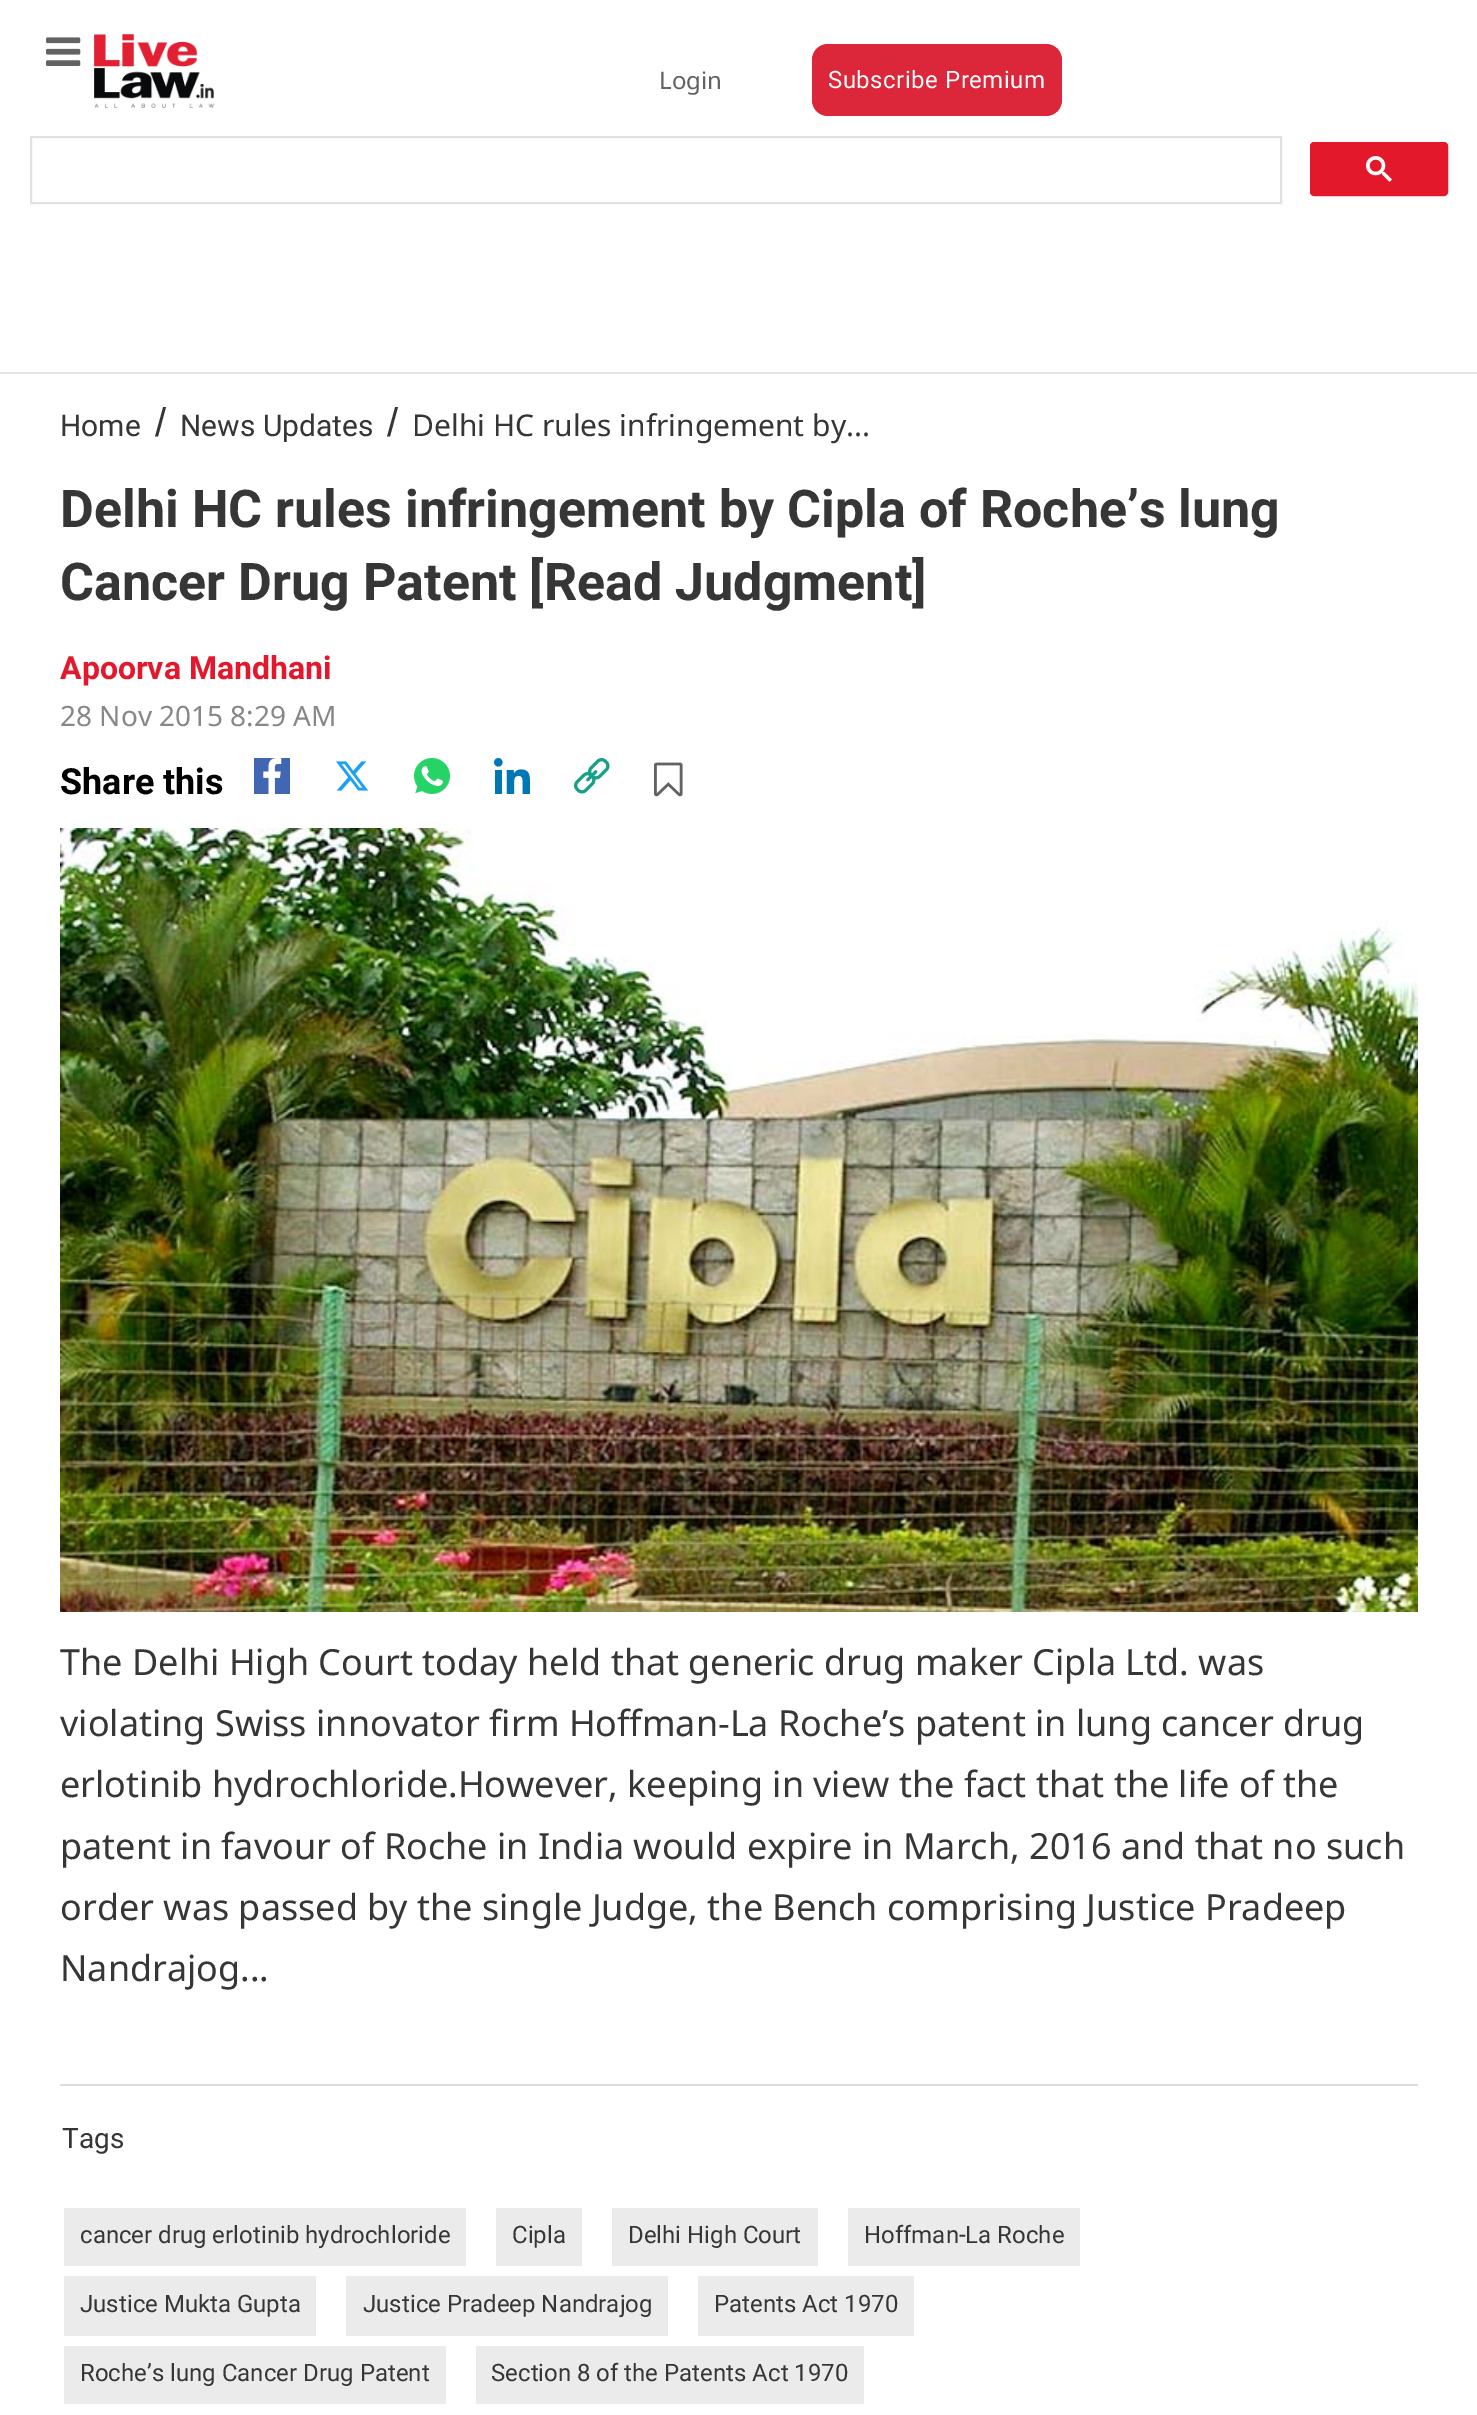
%!PS
<< /PageSize [1477 2415] >> setpagedevice
/mt/moveto load def
/fl/fill load def
/st/stroke load def
/gs/gsave load def
/gr/grestore load def
/lw/setlinewidth load def
/co { dup -16 bitshift 255 div exch dup -8 bitshift 255 and 255 div exch 255 and 255 div setrgbcolor } def
/fn { [ exch dup neg 0 0 3 -1 roll 0 0 ] selectfont } def
/tx { co fn moveto show } def
/bx { co rectfill } def
/rr { 5 dict begin { /r /h /w /y /x } { exch def } forall
  x r add y moveto x w add y 2 copy h add r arct x w add y h add x 1 index r arct
  x y h add x y r arct x y 2 copy exch w add exch r arct closepath end } def
/im { 5 dict begin { /h /w /y /x /name } { exch def } forall
  gsave x y translate w h scale
  w h 8 [w 0 0 h 0 0] name (r) file false 3 colorimage grestore end } def
0 2415 translate 1 -1 scale
4 setmiterlimit
0 0 1477 2415 16#FFFFFF bx
(media/1.raw) 46 37 35 29 im
(media/2.raw) 94 34 120 74 im
16#DC2639 co
812 44 250 72 16 rr fl
16#DFE1E5 co
2 lw
31 137 1250 66 rectstroke
16#E3182B co
1311 143 136 52 3 rr gs fl gr
st
(media/3.raw) 1366 156 26 26 im
0 372 1477 2 16#E4E4E4 bx
254 758 36 36 16#4267B2 bx
(media/4.raw) 263 758 19 36 im
(media/5.raw) 336 761 33 30 im
(media/6.raw) 414 758 36 36 im
(media/7.raw) 494 758 36 36 im
(media/8.raw) 574 758 36 36 im
(media/9.raw) 654 762 29 35 im
(media/10.raw) 60 828 1358 784 im
60 2084 1358 2 16#DCDCDC bx
64 2208 402 58 16#EBEBEB bx
496 2208 86 58 16#EBEBEB bx
612 2208 206 58 16#EBEBEB bx
848 2208 232 58 16#EBEBEB bx
64 2276 252 60 16#EBEBEB bx
346 2276 322 60 16#EBEBEB bx
698 2276 216 60 16#EBEBEB bx
64 2346 382 58 16#EBEBEB bx
476 2346 388 58 16#EBEBEB bx
(Login) 659 89 /NotoSans-Regular 24 16#626262 tx
/Roboto-Regular 24 fn
16#FFFFFF co
828 88 mt .5 0 (Subscribe Premium) ashow
(Home) 60 436 /Roboto-Regular 30 16#363636 tx
(/) 155 436 /LiberationSans-Regular 40 16#363636 tx
(News Updates) 180 436 /Roboto-Regular 30 16#363636 tx
(/) 387 436 /LiberationSans-Regular 40 16#363636 tx
(Delhi HC rules infringement by...) 412 436 /NotoSans-Regular 30 16#363636 tx
(Delhi HC rules infringement by Cipla of Roche’s lung) 60 527 /Roboto-Bold 52 16#363636 tx
(Cancer Drug Patent [Read Judgment]) 60 600 /Roboto-Bold 52 16#363636 tx
(Apoorva Mandhani) 60 679 /Roboto-Bold 32 16#E4182C tx
(28 Nov 2015 8:29 AM) 60 726 /NotoSans-Regular 28 16#878787 tx
(Share this) 60 794 /Roboto-Bold 36 16#000000 tx
(The Delhi High Court today held that generic drug maker Cipla Ltd. was) 60 1675 /NotoSans-Regular 36 16#363636 tx
(violating Swiss innovator firm Hoffman-La Roche’s patent in lung cancer drug) 60 1736 /NotoSans-Regular 36 16#363636 tx
(erlotinib hydrochloride.However, keeping in view the fact that the life of the) 60 1797 /NotoSans-Regular 36 16#363636 tx
(patent in favour of Roche in India would expire in March, 2016 and that no such) 60 1859 /NotoSans-Regular 36 16#363636 tx
(order was passed by the single Judge, the Bench comprising Justice Pradeep) 60 1920 /NotoSans-Regular 36 16#363636 tx
(Nandrajog...) 60 1981 /NotoSans-Regular 36 16#363636 tx
(Tags) 62 2148 /Roboto-Regular 28 16#363636 tx
(cancer drug erlotinib hydrochloride) 80 2243 /Roboto-Regular 24 16#363636 tx
(Cipla) 512 2243 /Roboto-Regular 24 16#363636 tx
(Delhi High Court) 628 2243 /Roboto-Regular 24 16#363636 tx
(Hoffman-La Roche) 864 2243 /Roboto-Regular 24 16#363636 tx
(Justice Mukta Gupta) 80 2312 /Roboto-Regular 24 16#363636 tx
(Justice Pradeep Nandrajog) 363 2312 /Roboto-Regular 24 16#363636 tx
(Patents Act 1970) 714 2312 /Roboto-Regular 24 16#363636 tx
(Roche’s lung Cancer Drug Patent) 80 2381 /Roboto-Regular 24 16#363636 tx
(Section 8 of the Patents Act 1970) 491 2381 /Roboto-Regular 24 16#363636 tx
showpage
